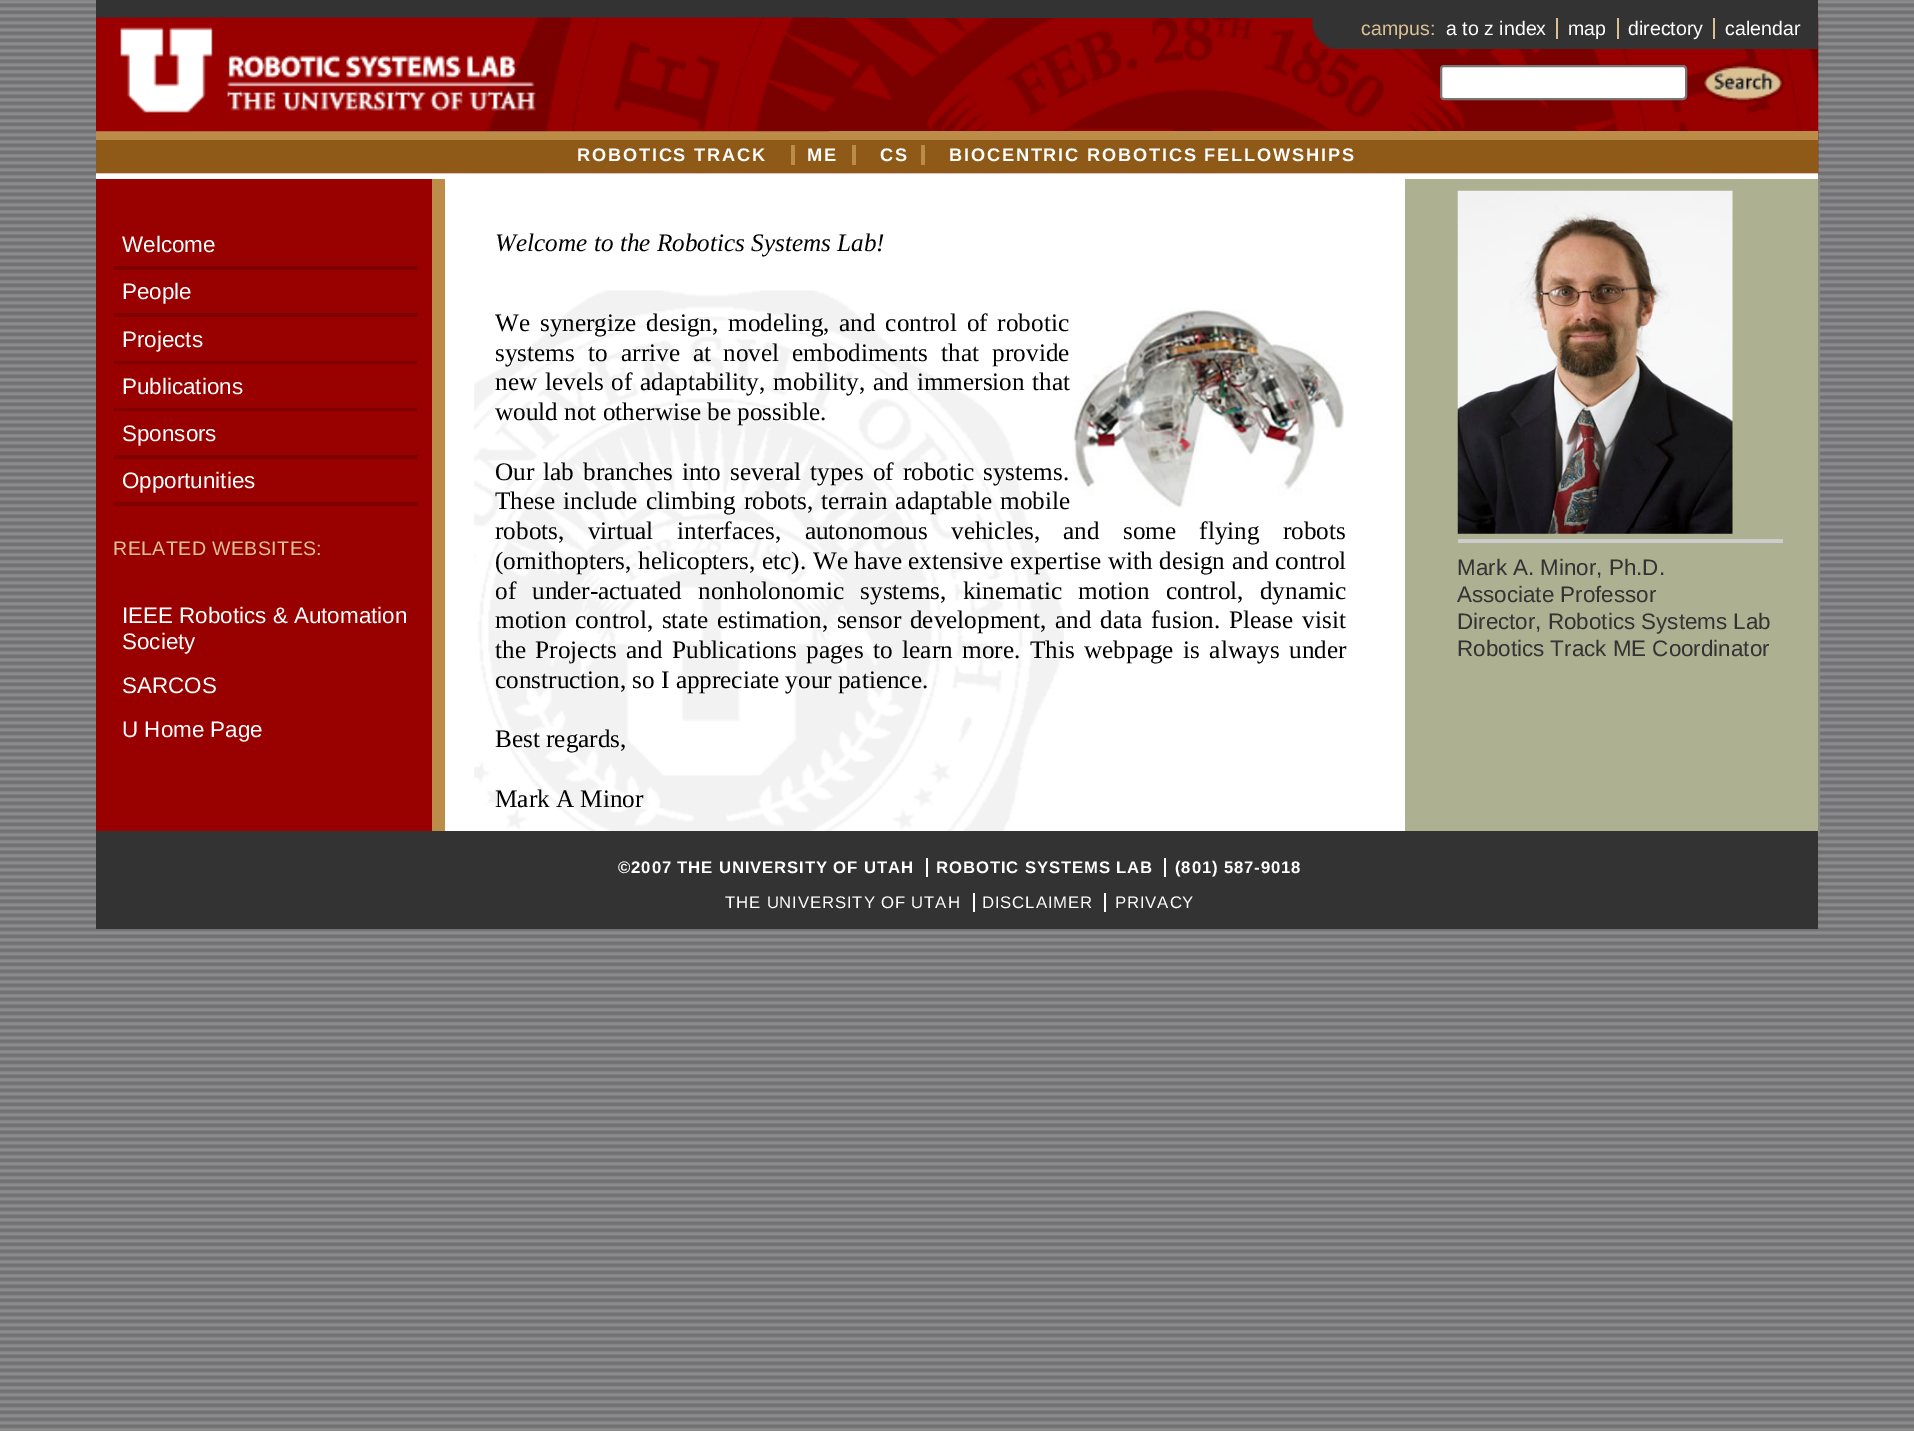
%!PS
<< /PageSize [1914 1431] >> setpagedevice
/mt/moveto load def
/fl/fill load def
/st/stroke load def
/gs/gsave load def
/gr/grestore load def
/lw/setlinewidth load def
/co { dup -16 bitshift 255 div exch dup -8 bitshift 255 and 255 div exch 255 and 255 div setrgbcolor } def
/fn { [ exch dup neg 0 0 3 -1 roll 0 0 ] selectfont } def
/tx { co fn moveto show } def
/bx { co rectfill } def
/rr { 5 dict begin { /r /h /w /y /x } { exch def } forall
  x r add y moveto x w add y 2 copy h add r arct x w add y h add x 1 index r arct
  x y h add x y r arct x y 2 copy exch w add exch r arct closepath end } def
/im { 5 dict begin { /h /w /y /x /name } { exch def } forall
  gsave x y translate w h scale
  w h 8 [w 0 0 h 0 0] name (r) file false 3 colorimage grestore end } def
0 1431 translate 1 -1 scale
4 setmiterlimit
0 0 1914 1431 16#FFFFFF bx
(media/1.raw) 0 0 1914 1431 im
96 18 1722 813 16#FFFFFF bx
(media/2.raw) 96 17 1723 157 im
96 0 1722 18 16#333333 bx
96 131 1722 9 16#BB8D49 bx
(media/3.raw) 96 17 123 115 im
(media/4.raw) 218 17 612 115 im
1336 18 482 31 16#333333 bx
(media/5.raw) 1312 18 24 31 im
1556 18 2 21 16#DAC092 bx
1617 18 2 21 16#DAC092 bx
1713 18 2 21 16#DAC092 bx
16#FFFFFF co
1441 66 245 33 3 rr gs fl gr
16#767676 co
2 lw
st
(media/6.raw) 1701 63 84 41 im
96 140 1722 33 16#8F5917 bx
791 145 4 20 16#BB8D49 bx
852 145 4 20 16#BB8D49 bx
921 145 4 20 16#BB8D49 bx
96 179 336 652 16#990000 bx
432 179 13 652 16#BB8D49 bx
(media/7.raw) 1072 308 272 200 im
1405 179 413 652 16#ADB091 bx
1818 179 2 656 16#888888 bx
114 266 304 4 16#7E0000 bx
114 313 304 4 16#7E0000 bx
114 361 304 3 16#7E0000 bx
114 408 304 3 16#7E0000 bx
114 455 304 4 16#7E0000 bx
114 502 304 4 16#7E0000 bx
(media/8.raw) 474 290 590 541 im
(media/9.raw) 1457 190 276 344 im
1458 539 325 4 16#CCCCCC bx
96 831 1722 98 16#333333 bx
926 858 2 19 16#FFFFFF bx
1164 858 2 19 16#FFFFFF bx
973 893 2 19 16#FFFFFF bx
1104 893 2 19 16#FFFFFF bx
(campus:) 1361 35 /LiberationSans-Regular 19.6 16#DAC092 tx
(a to z index) 1446 35 /LiberationSans-Regular 19.6 16#FFFFFF tx
(map) 1568 35 /LiberationSans-Regular 19.6 16#FFFFFF tx
(directory) 1628 35 /LiberationSans-Regular 19.6 16#FFFFFF tx
(calendar) 1725 35 /LiberationSans-Regular 19.6 16#FFFFFF tx
/LiberationSans-Bold 18.2 fn
577 161 mt 1.8 0 (ROBOTICS TRACK) ashow
807 161 mt 1.8 0 (ME) ashow
880 161 mt 1.8 0 (CS) ashow
949 161 mt 1.8 0 (BIOCENTRIC ROBOTICS FELLOWSHIPS) ashow
(Welcome to the Robotics Systems Lab!) 495 251 /LiberationSerif-Italic 25.2 16#000000 tx
/LiberationSerif-Regular 25.2 fn
495 331 mt 3.5 0 32 (We synergize design, modeling, and control of robotic) widthshow
495 361 mt 7 0 32 (systems to arrive at) widthshow
723 361 mt 7 0 32 (novel embodiments that provide) widthshow
495 390 mt 1.5 0 32 (new levels of adaptability, mobility, and immersion that) widthshow
(would not otherwise be possible.) 495 420 /LiberationSerif-Regular 25.2 16#000000 tx
495 480 mt 2.75 0 32 (Our lab branches into several types of robotic systems.) widthshow
495 509 mt 2 0 32 (These include climbing robots, terrain adaptable mobile) widthshow
495 539 mt 17 0 32 (robots, virtual) widthshow
677 539 mt 17 0 32 (interfaces, autonomous vehicles, and some flying robots) widthshow
495 569 mt .5 0 32 (\(ornithopters, helicopters, etc\). We have) widthshow
908 569 mt .5 0 32 (extensive expertise with design and control) widthshow
495 599 mt 10 0 32 (of under-actuated nonholonomic systems, kinematic motion control, dynamic) widthshow
495 628 mt 2.5 0 32 (motion control, state estimation, sensor development, and data fusion.) widthshow
1229 628 mt 2.5 0 32 (Please visit) widthshow
495 658 mt 3.25 0 32 (the Projects and Publications pages to learn more. This webpage is always under) widthshow
(construction, so I appreciate your patience.) 495 688 /LiberationSerif-Regular 25.2 16#000000 tx
(Best regards,) 495 747 /LiberationSerif-Regular 25.2 16#000000 tx
(Mark A Minor) 495 807 /LiberationSerif-Regular 25.2 16#000000 tx
(Welcome) 122 252 /LiberationSans-Regular 22.4 16#FFFFFF tx
(People) 122 299 /LiberationSans-Regular 22.4 16#FFFFFF tx
(Projects) 122 347 /LiberationSans-Regular 22.4 16#FFFFFF tx
(Publications) 122 394 /LiberationSans-Regular 22.4 16#FFFFFF tx
(Sponsors) 122 441 /LiberationSans-Regular 22.4 16#FFFFFF tx
(Opportunities) 122 488 /LiberationSans-Regular 22.4 16#FFFFFF tx
/LiberationSans-Regular 19.6 fn
16#DAC092 co
113 555 mt .4 0 (RELATED WEBSITES:) ashow
(IEEE Robotics & Automation) 122 623 /LiberationSans-Regular 22.4 16#FFFFFF tx
(Society) 122 649 /LiberationSans-Regular 22.4 16#FFFFFF tx
(SARCOS) 122 693 /LiberationSans-Regular 22.4 16#FFFFFF tx
(U Home Page) 122 737 /LiberationSans-Regular 22.4 16#FFFFFF tx
(Mark A. Minor, Ph.D.) 1457 575 /LiberationSans-Regular 22.4 16#333333 tx
(Associate Professor) 1457 602 /LiberationSans-Regular 22.4 16#333333 tx
(Director, Robotics Systems Lab) 1457 629 /LiberationSans-Regular 22.4 16#333333 tx
(Robotics Track ME Coordinator) 1457 656 /LiberationSans-Regular 22.4 16#333333 tx
/LiberationSans-Bold 16.75 fn
16#FFFFFF co
618 873 mt .85 0 (©2007 THE UNIVERSITY OF UTAH) ashow
936 873 mt .85 0 (ROBOTIC SYSTEMS LAB) ashow
1175 873 mt .85 0 (\(801\) 587-9018) ashow
/LiberationSans-Regular 16.75 fn
725 908 mt .85 0 (THE UNIVERSITY OF UTAH) ashow
982 908 mt .85 0 (DISCLAIMER) ashow
1115 908 mt .85 0 (PRIVACY) ashow
showpage
